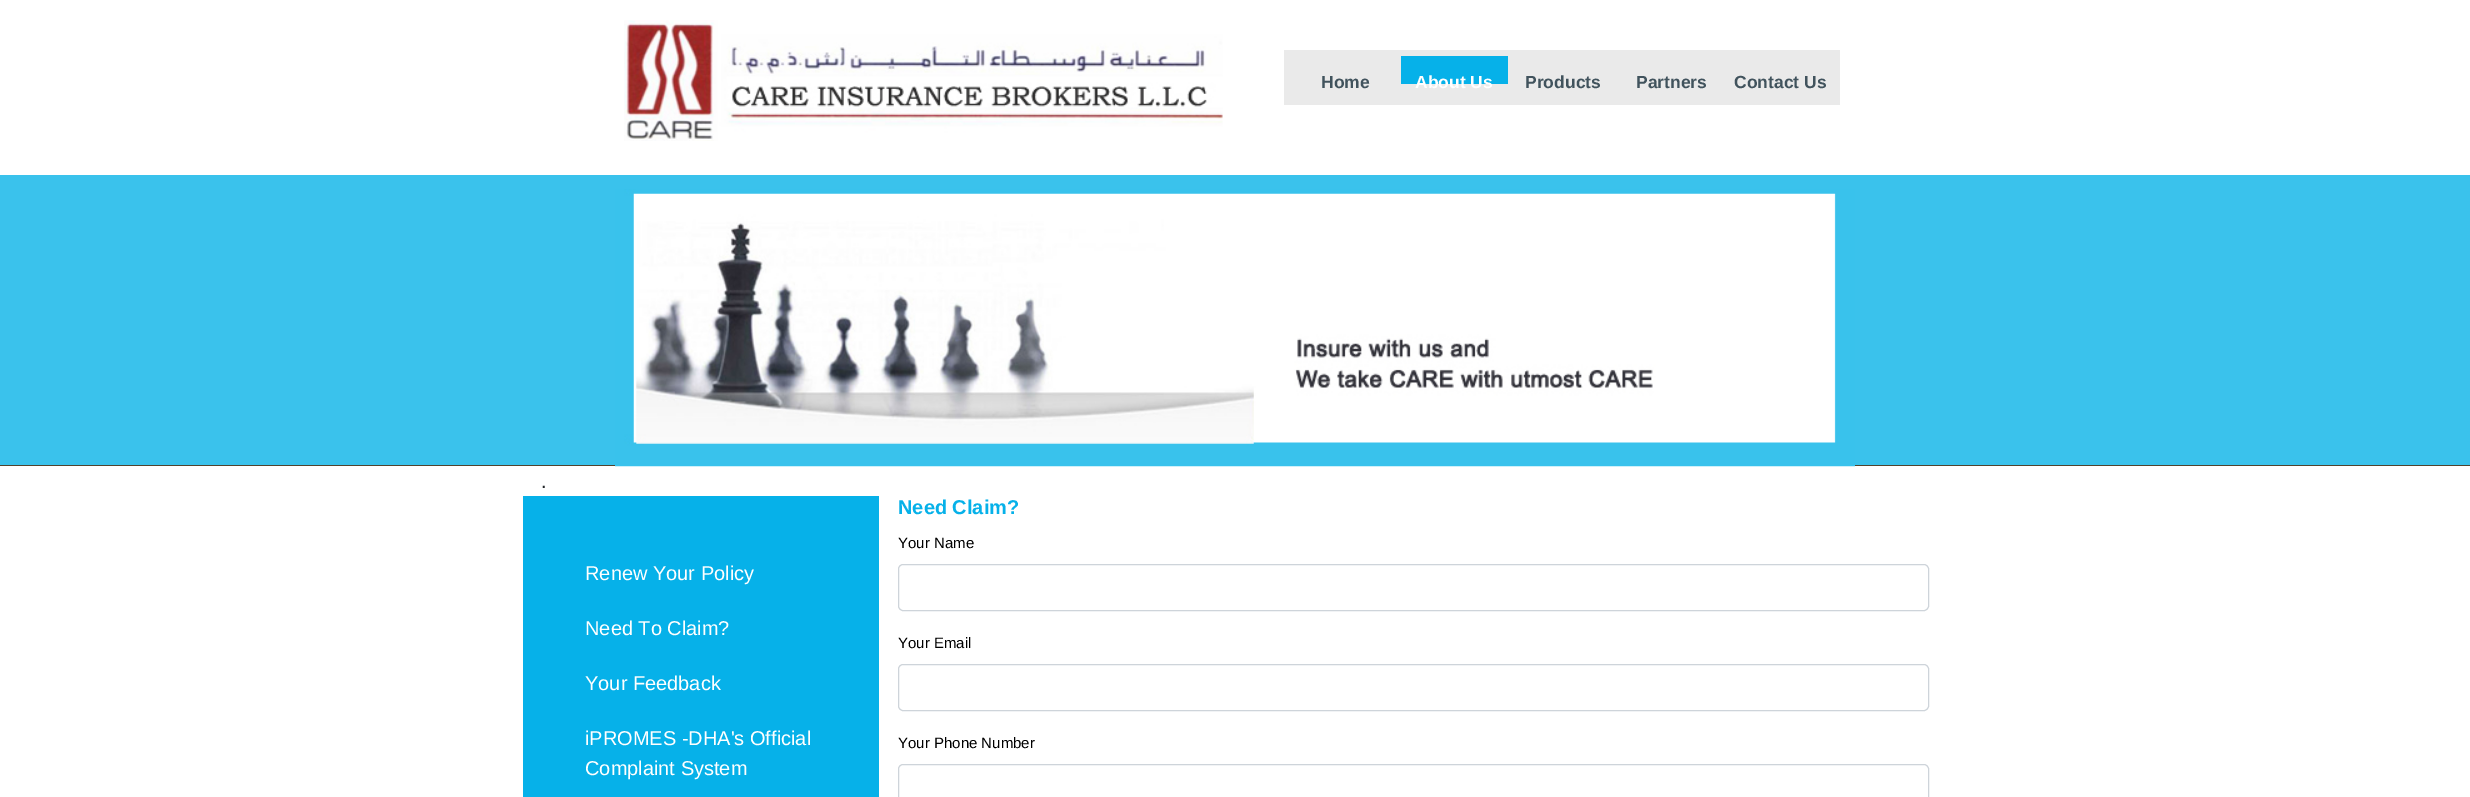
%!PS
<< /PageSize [2470 797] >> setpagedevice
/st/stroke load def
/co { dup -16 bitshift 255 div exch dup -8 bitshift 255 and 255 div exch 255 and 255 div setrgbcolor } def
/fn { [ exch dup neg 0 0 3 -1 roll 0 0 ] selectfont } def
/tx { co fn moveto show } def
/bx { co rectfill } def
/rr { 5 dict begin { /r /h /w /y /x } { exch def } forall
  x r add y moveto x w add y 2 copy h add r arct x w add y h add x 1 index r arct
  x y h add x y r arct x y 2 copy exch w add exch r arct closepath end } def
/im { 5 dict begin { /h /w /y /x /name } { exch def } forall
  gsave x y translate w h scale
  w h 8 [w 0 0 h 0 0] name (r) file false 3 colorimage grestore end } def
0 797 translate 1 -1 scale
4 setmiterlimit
0 0 2470 797 16#FFFFFF bx
(media/1.raw) 624 20 599 121 im
1284 50 556 55 16#EAEAEA bx
1401 56 107 28 16#06B1E9 bx
0 175 2470 290 16#3AC2EC bx
0 465 2470 1 16#51432D bx
(media/2.raw) 615 189 1240 278 im
523 496 356 301 16#06B1E9 bx
16#CED4DA co
898.5 564.5 1030 46 4.5 rr st
898.5 664.5 1030 46 4.5 rr st
898.5 764.5 1030 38 4.5 rr st
(Home) 1321 88 /LiberationSans-Bold 17.5 16#41535D tx
(About Us) 1415 88 /LiberationSans-Bold 17.5 16#FFFFFF tx
(Products) 1525 88 /LiberationSans-Bold 17.5 16#41535D tx
(Partners) 1636 88 /LiberationSans-Bold 17.5 16#41535D tx
(Contact Us) 1734 88 /LiberationSans-Bold 17.5 16#41535D tx
(.) 541 488 /LiberationSans-Regular 20 16#212529 tx
(Renew Your Policy) 585 580 /LiberationSans-Regular 20 16#FFFFFF tx
(Need To Claim?) 585 635 /LiberationSans-Regular 20 16#FFFFFF tx
(Your Feedback) 585 690 /LiberationSans-Regular 20 16#FFFFFF tx
(iPROMES -DHA's Official) 585 745 /LiberationSans-Regular 20 16#FFFFFF tx
(Complaint System) 585 775 /LiberationSans-Regular 20 16#FFFFFF tx
(Need Claim?) 898 514 /LiberationSans-Bold 20 16#06B1E9 tx
(Your Name) 898 548 /LiberationSans-Regular 15 16#000000 tx
(Your Email) 898 648 /LiberationSans-Regular 15 16#000000 tx
(Your Phone Number) 898 748 /LiberationSans-Regular 15 16#000000 tx
showpage
